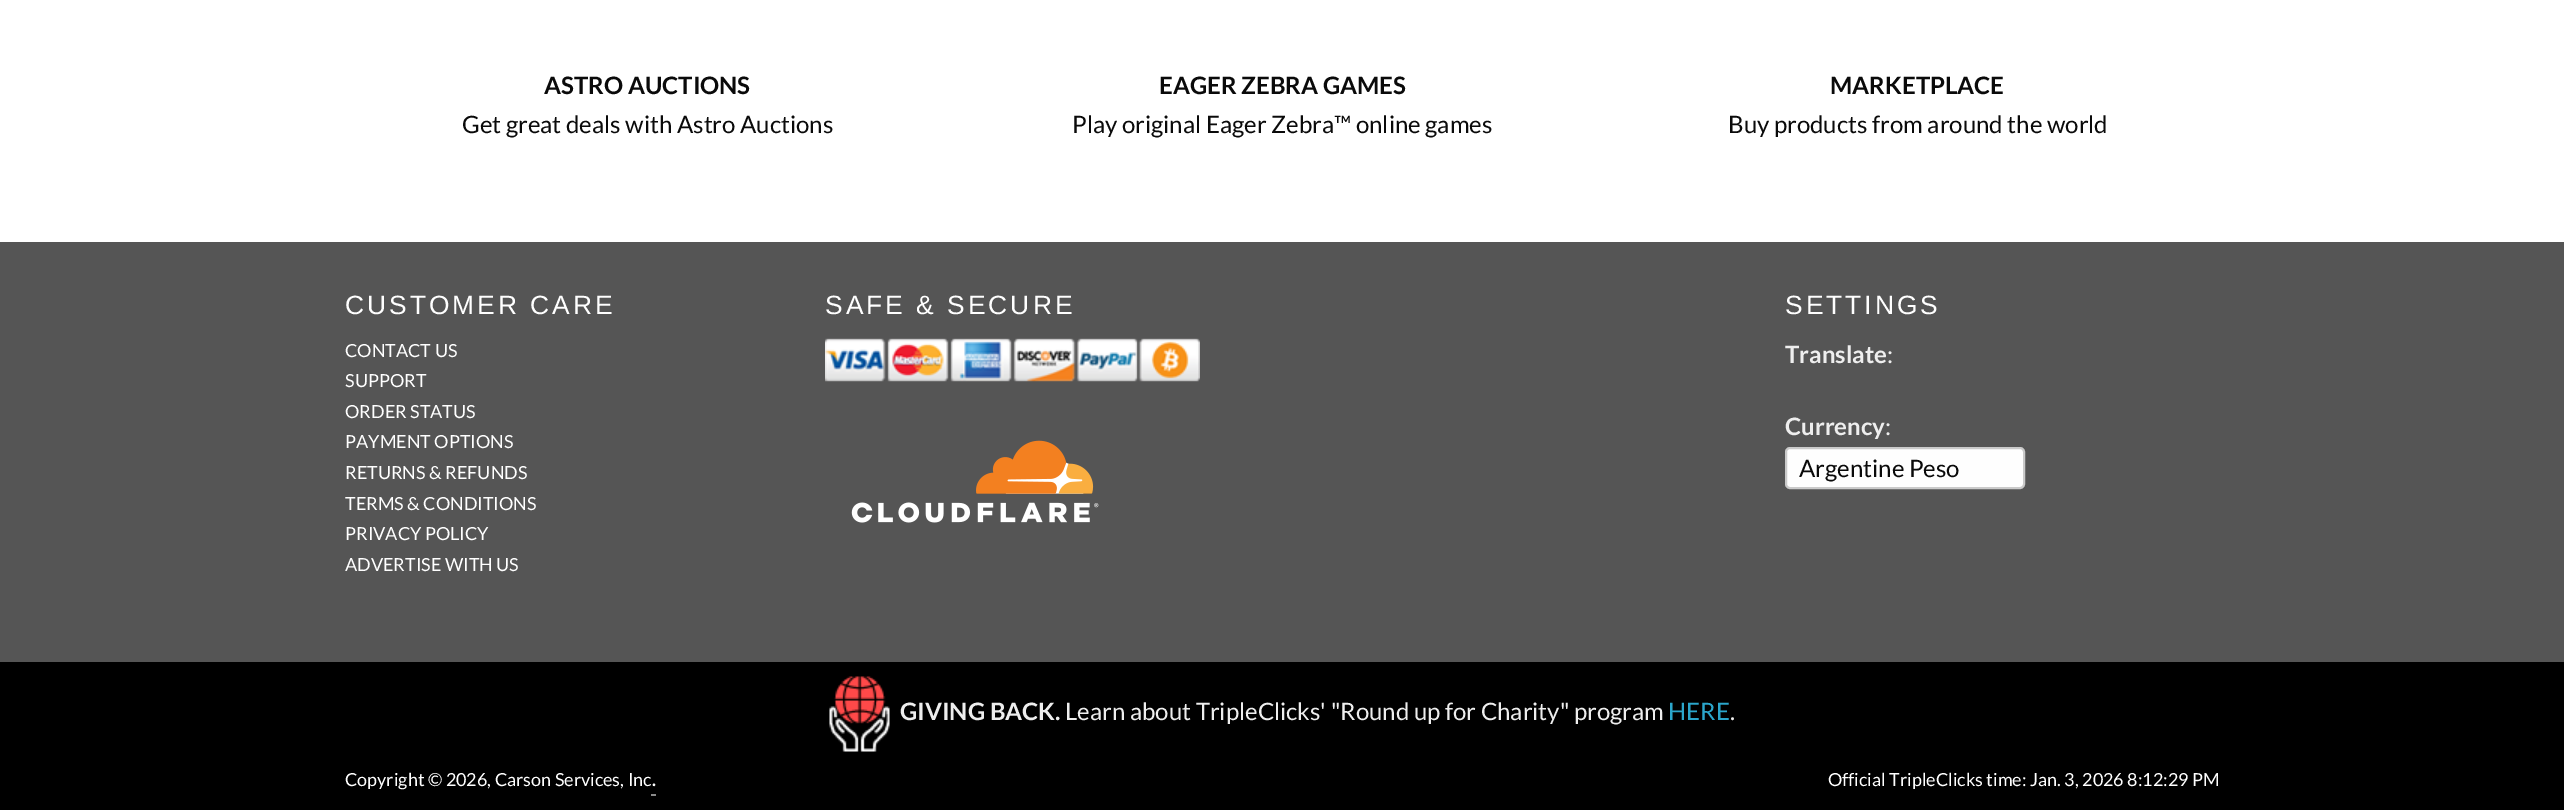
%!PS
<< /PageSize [2564 810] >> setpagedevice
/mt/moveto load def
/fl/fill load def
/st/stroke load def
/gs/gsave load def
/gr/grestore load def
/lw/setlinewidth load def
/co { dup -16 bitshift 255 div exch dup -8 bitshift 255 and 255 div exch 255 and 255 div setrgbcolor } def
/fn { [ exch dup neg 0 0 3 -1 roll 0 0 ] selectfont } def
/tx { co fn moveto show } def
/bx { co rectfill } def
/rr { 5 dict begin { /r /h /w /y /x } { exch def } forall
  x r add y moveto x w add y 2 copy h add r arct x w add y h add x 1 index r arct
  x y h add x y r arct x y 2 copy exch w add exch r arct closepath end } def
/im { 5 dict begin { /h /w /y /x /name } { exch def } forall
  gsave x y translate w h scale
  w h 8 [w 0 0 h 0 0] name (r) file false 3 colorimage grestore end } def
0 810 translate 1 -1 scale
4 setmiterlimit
0 0 2564 810 16#FFFFFF bx
0 242 2564 420 16#555555 bx
(media/1.raw) 825 338 375 44 im
(media/2.raw) 851 440 248 83 im
16#FEFEFE co
1786 448 238 40 4 rr gs fl gr
16#CACACA co
2 lw
st
0 662 2564 148 16#000000 bx
(media/3.raw) 829 676 61 76 im
651 794 5 2 16#8A8A8A bx
(ASTRO AUCTIONS) 544 94 /Lato-Bold 24 16#0A0A0A tx
(Get great deals with Astro Auctions) 462 133 /Lato-Regular 24 16#0A0A0A tx
(EAGER ZEBRA GAMES) 1159 94 /Lato-Bold 24 16#0A0A0A tx
(Play original Eager Zebra™ online games) 1072 133 /Lato-Regular 24 16#0A0A0A tx
(MARKETPLACE) 1830 94 /Lato-Bold 24 16#0A0A0A tx
(Buy products from around the world) 1728 133 /Lato-Regular 24 16#0A0A0A tx
/LiberationSans-Regular 26.4 fn
16#FFFFFF co
345 314 mt 3 0 (CUSTOMER CARE) ashow
(CONTACT US) 345 357 /Lato-Regular 18 16#FFFFFF tx
(SUPPORT) 345 387 /Lato-Regular 18 16#FFFFFF tx
(ORDER STATUS) 345 418 /Lato-Regular 18 16#FFFFFF tx
(PAYMENT OPTIONS) 345 448 /Lato-Regular 18 16#FFFFFF tx
(RETURNS & REFUNDS) 345 479 /Lato-Regular 18 16#FFFFFF tx
(TERMS & CONDITIONS) 345 510 /Lato-Regular 18 16#FFFFFF tx
(PRIVACY POLICY) 345 540 /Lato-Regular 18 16#FFFFFF tx
(ADVERTISE WITH US) 345 571 /Lato-Regular 18 16#FFFFFF tx
/LiberationSans-Regular 26.4 fn
825 314 mt 3 0 (SAFE & SECURE) ashow
1785 314 mt 3 0 (SETTINGS) ashow
(Translate) 1785 363 /Lato-Bold 24 16#EEEEEE tx
(:) 1887 363 /Lato-Regular 24 16#EEEEEE tx
(Currency) 1785 435 /Lato-Bold 24 16#EEEEEE tx
(:) 1885 435 /Lato-Regular 24 16#EEEEEE tx
(Argentine Peso) 1799 477 /Lato-Regular 24 16#0A0A0A tx
(GIVING BACK.) 900 720 /Lato-Bold 24 16#EEEEEE tx
(Learn about TripleClicks' "Round up for Charity" program) 1065 720 /Lato-Regular 24 16#EEEEEE tx
(HERE) 1668 720 /Lato-Regular 24 16#2BA6CB tx
(.) 1730 720 /Lato-Regular 24 16#EEEEEE tx
(Copyright © 2026, Carson Services, Inc) 345 786 /Lato-Regular 18 16#FFFFFF tx
(.) 652 786 /Lato-Bold 18 16#FFFFFF tx
(Official TripleClicks time: Jan. 3, 2026 8:12:29 PM) 1828 786 /Lato-Regular 18 16#FFFFFF tx
showpage
